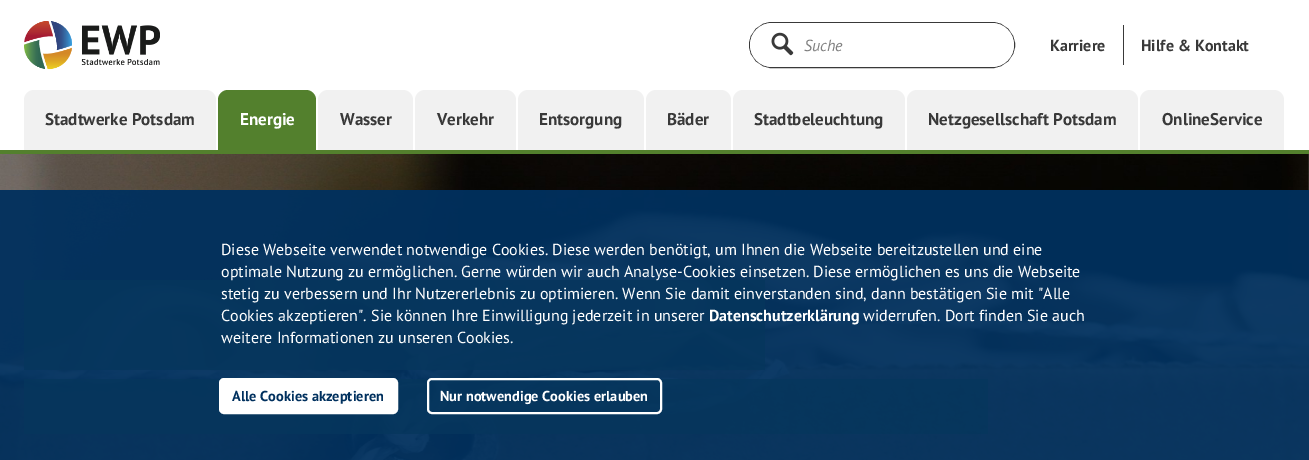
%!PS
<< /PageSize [1309 460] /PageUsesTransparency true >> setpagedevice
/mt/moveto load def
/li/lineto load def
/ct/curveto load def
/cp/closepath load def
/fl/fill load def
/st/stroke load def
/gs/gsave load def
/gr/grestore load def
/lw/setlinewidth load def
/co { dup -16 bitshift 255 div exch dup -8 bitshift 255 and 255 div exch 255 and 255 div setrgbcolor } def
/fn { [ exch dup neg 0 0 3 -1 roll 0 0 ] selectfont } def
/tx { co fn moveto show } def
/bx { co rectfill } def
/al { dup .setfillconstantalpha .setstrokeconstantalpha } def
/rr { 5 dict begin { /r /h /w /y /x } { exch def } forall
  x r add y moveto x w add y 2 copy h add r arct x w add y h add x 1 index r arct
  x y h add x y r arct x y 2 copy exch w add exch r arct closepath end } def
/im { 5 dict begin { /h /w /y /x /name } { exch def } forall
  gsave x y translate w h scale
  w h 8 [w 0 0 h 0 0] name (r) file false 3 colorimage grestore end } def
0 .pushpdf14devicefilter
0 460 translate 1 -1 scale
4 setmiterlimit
0 0 1309 460 16#FFFFFF bx
(media/1.raw) 24 21 136 49 im
16#393939 co
749.5 22.5 265 45 22.5 rr st
16#FFFFFF co
750 23 264 44 22 rr fl
(media/2.raw) 771 32 23 24 im
1123 25 1 40 16#393939 bx
0 150 1309 4 16#53802D bx
16#F1F1F1 co
34 90 mt 206 90 li 211.5 90 216 94.5 216 100 ct 216 150 li 24 150 li 24 100 li 24 94.5 28.5 90 34 90 ct cp fl
16#53802D co
228 90 mt 306 90 li 311.5 90 316 94.5 316 100 ct 316 150 li 218 150 li 218 100 li 218 94.5 222.5 90 228 90 ct cp fl
16#F1F1F1 co
328 90 mt 403 90 li 408.5 90 413 94.5 413 100 ct 413 150 li 318 150 li 318 100 li 318 94.5 322.5 90 328 90 ct cp fl
425 90 mt 506 90 li 511.5 90 516 94.5 516 100 ct 516 150 li 415 150 li 415 100 li 415 94.5 419.5 90 425 90 ct cp fl
528 90 mt 634 90 li 639.5 90 644 94.5 644 100 ct 644 150 li 518 150 li 518 100 li 518 94.5 522.5 90 528 90 ct cp fl
656 90 mt 721 90 li 726.5 90 731 94.5 731 100 ct 731 150 li 646 150 li 646 100 li 646 94.5 650.5 90 656 90 ct cp fl
743 90 mt 895 90 li 900.5 90 905 94.5 905 100 ct 905 150 li 733 150 li 733 100 li 733 94.5 737.5 90 743 90 ct cp fl
917 90 mt 1128 90 li 1133.5 90 1138 94.5 1138 100 ct 1138 150 li 907 150 li 907 100 li 907 94.5 911.5 90 917 90 ct cp fl
1150 90 mt 1274 90 li 1279.5 90 1284 94.5 1284 100 ct 1284 150 li 1140 150 li 1140 100 li 1140 94.5 1144.5 90 1150 90 ct cp fl
(media/3.raw) 0 154 1309 306 im
0.8 al
24 280 741 90 16#689F38 bx
24 379 964 55 16#689F38 bx
0.95 al
0 190 1309 270 16#00305E bx
1 al
16#FFFFFF co
220 379 177 34 4 rr gs fl gr
2 lw
st
428 379 233 34 4 rr st
(Suche) 804 51 /PTSans-Italic 16 16#808080 tx
(Karriere) 1050 51 /PTSans-Bold 16 16#393939 tx
(Hilfe & Kontakt) 1141 51 /PTSans-Bold 16 16#393939 tx
(Stadtwerke Potsdam) 45 125 /PTSans-Bold 17 16#393939 tx
(Energie) 240 125 /PTSans-Bold 17 16#FFFFFF tx
(Wasser) 340 125 /PTSans-Bold 17 16#393939 tx
(Verkehr) 437 125 /PTSans-Bold 17 16#393939 tx
(Entsorgung) 539 125 /PTSans-Bold 17 16#393939 tx
(Bäder) 667 125 /PTSans-Bold 17 16#393939 tx
(Stadtbeleuchtung) 754 125 /PTSans-Bold 17 16#393939 tx
(Netzgesellschaft Potsdam) 928 125 /PTSans-Bold 17 16#393939 tx
(OnlineService) 1162 125 /PTSans-Bold 17 16#393939 tx
(Diese Webseite verwendet notwendige Cookies. Diese werden benötigt, um Ihnen die Webseite bereitzustellen und eine) 221 255 /PTSans-Regular 16 16#FFFFFF tx
(optimale Nutzung zu ermöglichen. Gerne würden wir auch Analyse-Cookies einsetzen. Diese ermöglichen es uns die Webseite) 221 277 /PTSans-Regular 16 16#FFFFFF tx
(stetig zu verbessern und Ihr Nutzererlebnis zu optimieren. Wenn Sie damit einverstanden sind, dann bestätigen Sie mit "Alle) 221 299 /PTSans-Regular 16 16#FFFFFF tx
(Cookies akzeptieren". Sie können Ihre Einwilligung jederzeit in unserer) 221 321 /PTSans-Regular 16 16#FFFFFF tx
(Datenschutzerklärung) 709 321 /PTSans-Bold 16 16#FFFFFF tx
(widerrufen. Dort finden Sie auch) 863 321 /PTSans-Regular 16 16#FFFFFF tx
(weitere Informationen zu unseren Cookies.) 221 343 /PTSans-Regular 16 16#FFFFFF tx
(Alle Cookies akzeptieren) 232 401 /PTSans-Bold 14.4 16#00305E tx
(Nur notwendige Cookies erlauben) 440 401 /PTSans-Bold 14.4 16#FFFFFF tx
.poppdf14devicefilter showpage
